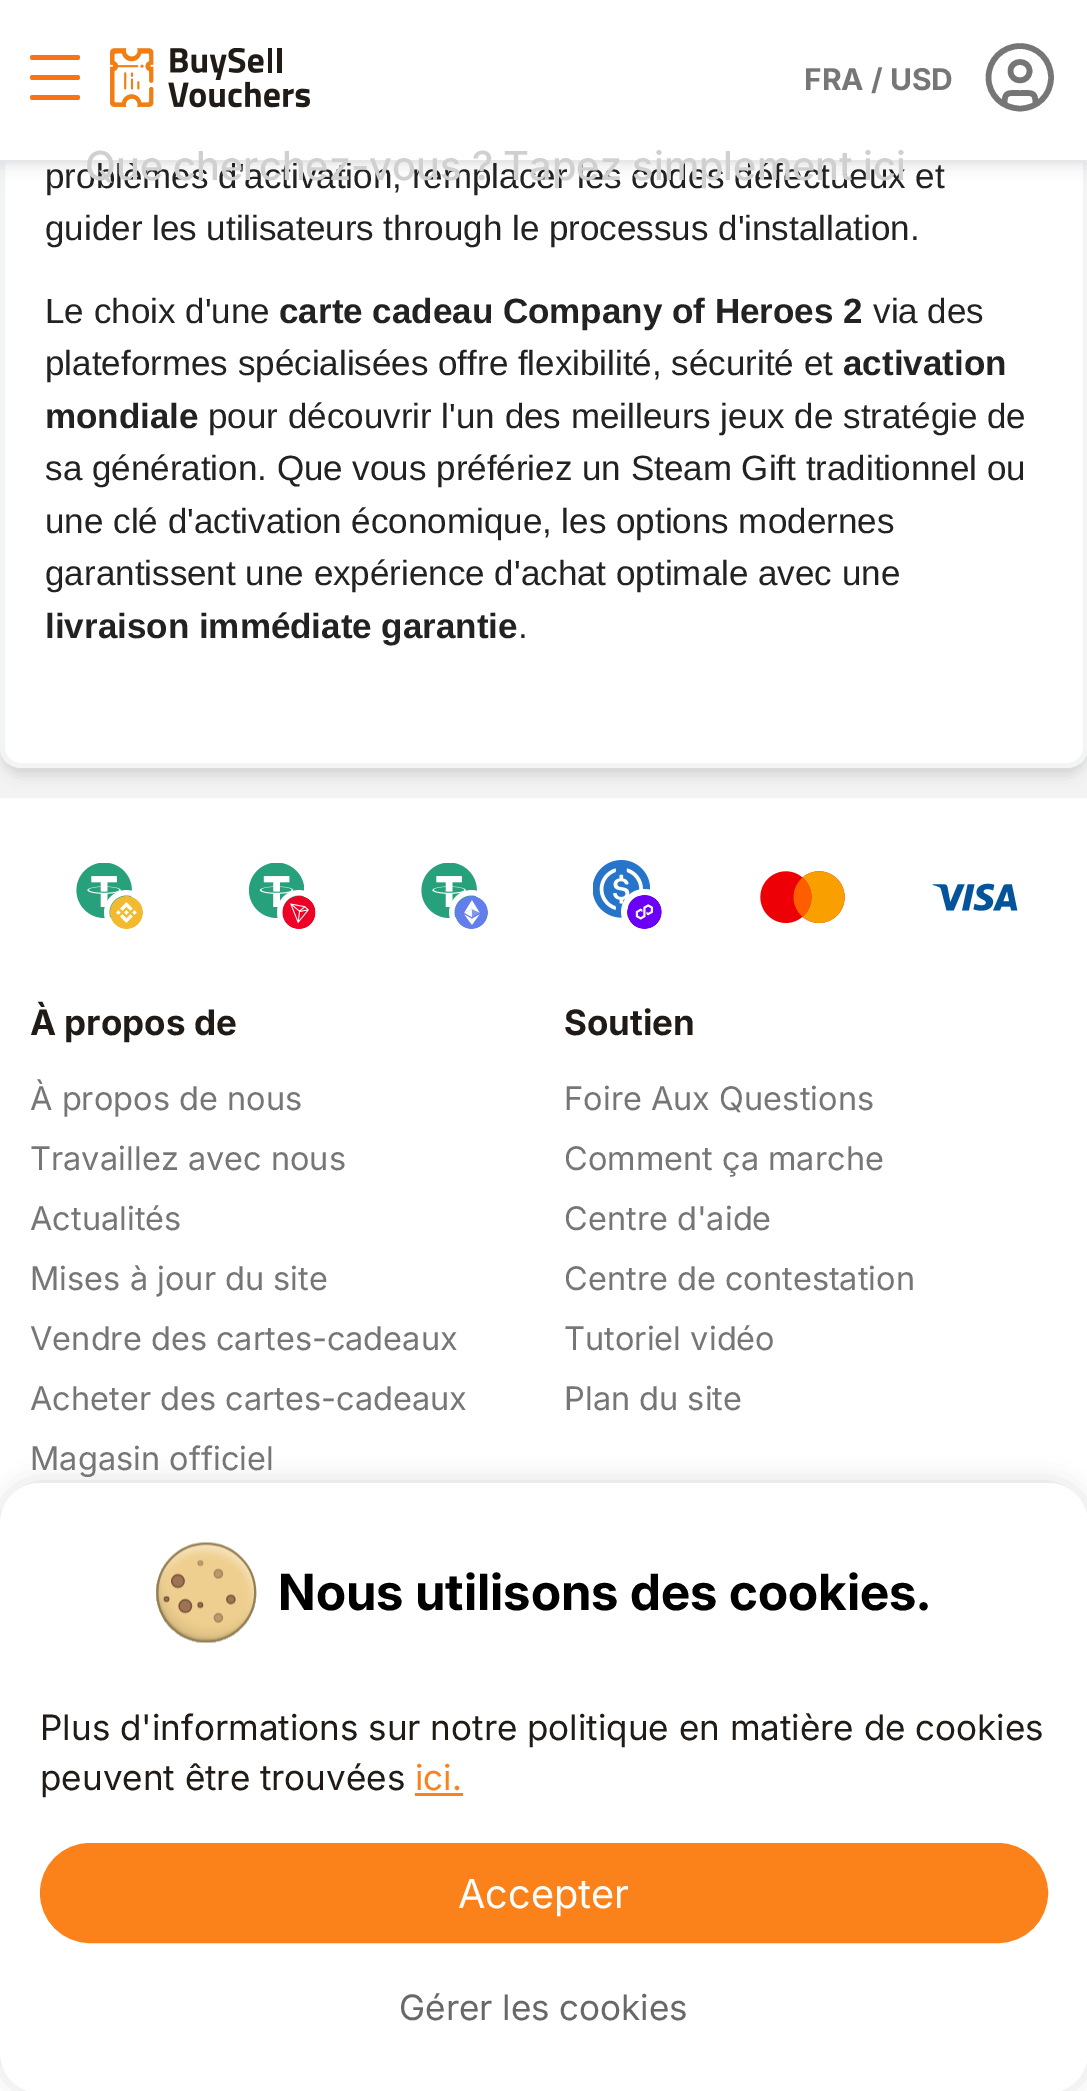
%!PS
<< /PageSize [1087 2091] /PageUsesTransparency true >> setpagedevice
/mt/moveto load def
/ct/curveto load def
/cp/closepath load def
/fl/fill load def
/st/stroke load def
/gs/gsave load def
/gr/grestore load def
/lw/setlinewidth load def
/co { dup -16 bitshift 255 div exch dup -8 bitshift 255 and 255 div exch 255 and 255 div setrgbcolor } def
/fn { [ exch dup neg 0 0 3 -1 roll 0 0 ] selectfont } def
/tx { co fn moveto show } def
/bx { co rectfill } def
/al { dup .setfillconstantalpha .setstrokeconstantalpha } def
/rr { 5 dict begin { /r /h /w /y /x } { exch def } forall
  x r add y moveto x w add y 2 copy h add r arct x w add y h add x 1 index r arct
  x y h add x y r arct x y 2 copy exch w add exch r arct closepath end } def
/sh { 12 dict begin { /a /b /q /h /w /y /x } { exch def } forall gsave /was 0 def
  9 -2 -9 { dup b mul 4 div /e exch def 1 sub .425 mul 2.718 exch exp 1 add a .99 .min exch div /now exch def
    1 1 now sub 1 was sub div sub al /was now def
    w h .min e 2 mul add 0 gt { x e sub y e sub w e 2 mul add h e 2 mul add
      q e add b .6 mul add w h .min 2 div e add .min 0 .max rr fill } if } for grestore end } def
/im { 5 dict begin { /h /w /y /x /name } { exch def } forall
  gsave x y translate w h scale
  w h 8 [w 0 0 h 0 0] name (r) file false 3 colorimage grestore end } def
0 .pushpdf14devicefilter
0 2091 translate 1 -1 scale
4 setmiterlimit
0 0 1087 2091 16#F3F3F3 bx
16#000000 co
5 -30 1078 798 15 5 .1 sh
3 -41 1082 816 18 7.5 .1 sh
16#FFFFFF co
2.5 -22.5 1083 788 17.5 rr gs fl gr
16#F3F4F6 co
5 lw
st
16#000000 co
0 0 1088 163 0 10 .13 sh
0 0 1087 160 16#FFFFFF bx
16#F97316 co
30 55 50 5 2.5 rr fl
30 75 50 5 2.5 rr fl
30 95 50 5 2.5 rr fl
(media/1.raw) 110 48 200 60 im
16#767676 co
5.6 lw
1 setlinecap
1 setlinejoin
1004.5 104.5 mt 1004.5 91.5 1007.5 93 1020 93 ct 1032.5 93 1035.5 91.5 1035.5 104.5 ct 1051 77.5 mt 1051 95 1037.5 108.5 1020 108.5 ct 1002.5 108.5 988.5 95 988.5 77.5 ct 988.5 60 1002.5 46 1020 46 ct 1037.5 46 1051 60 1051 77.5 ct cp 1029.5 71 mt 1029.5 83.5 1010.5 83.5 1010.5 71 ct 1010.5 59 1029.5 59 1029.5 71 ct cp st
0 798 1087 1293 16#FFFFFF bx
(media/2.raw) 76 863 67 66 im
(media/3.raw) 249 863 67 66 im
(media/4.raw) 421 863 67 66 im
(media/5.raw) 593 860 69 69 im
(media/6.raw) 760 871 85 52 im
(media/7.raw) 932 883 86 28 im
16#000000 co
0 1483 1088 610 40 12.5 .15 sh
16#FFFFFF co
0 1483 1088 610 40 rr fl
(media/8.raw) 156 1542 101 101 im
415 1793 48 3 16#FB811A bx
42.5 1845.5 1003 95 47.5 rr gs fl gr
5 lw
0 setlinecap
0 setlinejoin
st
(FRA / USD) 804 90 /Inter-Bold 30 16#767676 tx
(problèmes d'activation, remplacer les codes défectueux et) 45 188 /LiberationSans-Regular 35 16#222222 tx
0 160 1087 3 16#E5E7EB bx
(Que cherchez-vous ? Tapez simplement ici) 85 180 /Inter-Medium 40 16#D0D0D1 tx
(guider les utilisateurs through le processus d'installation.) 45 240 /LiberationSans-Regular 35 16#222222 tx
(Le choix d'une) 45 323 /LiberationSans-Regular 35 16#222222 tx
(carte cadeau Company of Heroes 2) 279 323 /LiberationSans-Bold 35 16#222222 tx
(via des) 873 323 /LiberationSans-Regular 35 16#222222 tx
(plateformes spécialisées offre flexibilité, sécurité et) 45 375 /LiberationSans-Regular 35 16#222222 tx
(activation) 843 375 /LiberationSans-Bold 35 16#222222 tx
(mondiale) 45 428 /LiberationSans-Bold 35 16#222222 tx
(pour découvrir l'un des meilleurs jeux de stratégie de) 208 428 /LiberationSans-Regular 35 16#222222 tx
(sa génération. Que vous préfériez un Steam Gift traditionnel ou) 45 480 /LiberationSans-Regular 35 16#222222 tx
(une clé d'activation économique, les options modernes) 45 533 /LiberationSans-Regular 35 16#222222 tx
(garantissent une expérience d'achat optimale avec une) 45 585 /LiberationSans-Regular 35 16#222222 tx
(livraison immédiate garantie) 45 638 /LiberationSans-Bold 35 16#222222 tx
(.) 518 638 /LiberationSans-Regular 35 16#222222 tx
(À propos de) 30 1035 /Inter-Bold 35 16#201B16 tx
(À propos de nous) 30 1110 /Inter-Regular 32.5 16#767676 tx
(Travaillez avec nous) 30 1170 /Inter-Regular 32.5 16#767676 tx
(Actualités) 30 1230 /Inter-Regular 32.5 16#767676 tx
(Mises à jour du site) 30 1290 /Inter-Regular 32.5 16#767676 tx
(Vendre des cartes-cadeaux) 30 1350 /Inter-Regular 32.5 16#767676 tx
(Acheter des cartes-cadeaux) 30 1410 /Inter-Regular 32.5 16#767676 tx
(Magasin officiel) 30 1470 /Inter-Regular 32.5 16#767676 tx
(Soutien) 564 1035 /Inter-Bold 35 16#201B16 tx
(Foire Aux Questions) 564 1110 /Inter-Regular 32.5 16#767676 tx
(Comment ça marche) 564 1170 /Inter-Regular 32.5 16#767676 tx
(Centre d'aide) 564 1230 /Inter-Regular 32.5 16#767676 tx
(Centre de contestation) 564 1290 /Inter-Regular 32.5 16#767676 tx
(Tutoriel vidéo) 564 1350 /Inter-Regular 32.5 16#767676 tx
(Plan du site) 564 1410 /Inter-Regular 32.5 16#767676 tx
(Nous utilisons des cookies.) 278 1610 /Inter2-Bold 50 16#000000 tx
(Plus d'informations sur notre politique en matière de cookies) 40 1740 /Inter-Regular 35 16#201B16 tx
(peuvent être trouvées) 40 1790 /Inter-Regular 35 16#201B16 tx
(ici.) 415 1790 /Inter-Regular 35 16#FB811A tx
(Accepter) 458 1908 /Inter2-Regular 40 16#FFFFFF tx
(Gérer les cookies) 399 2020 /Inter-Regular 35 16#686868 tx
.poppdf14devicefilter showpage
